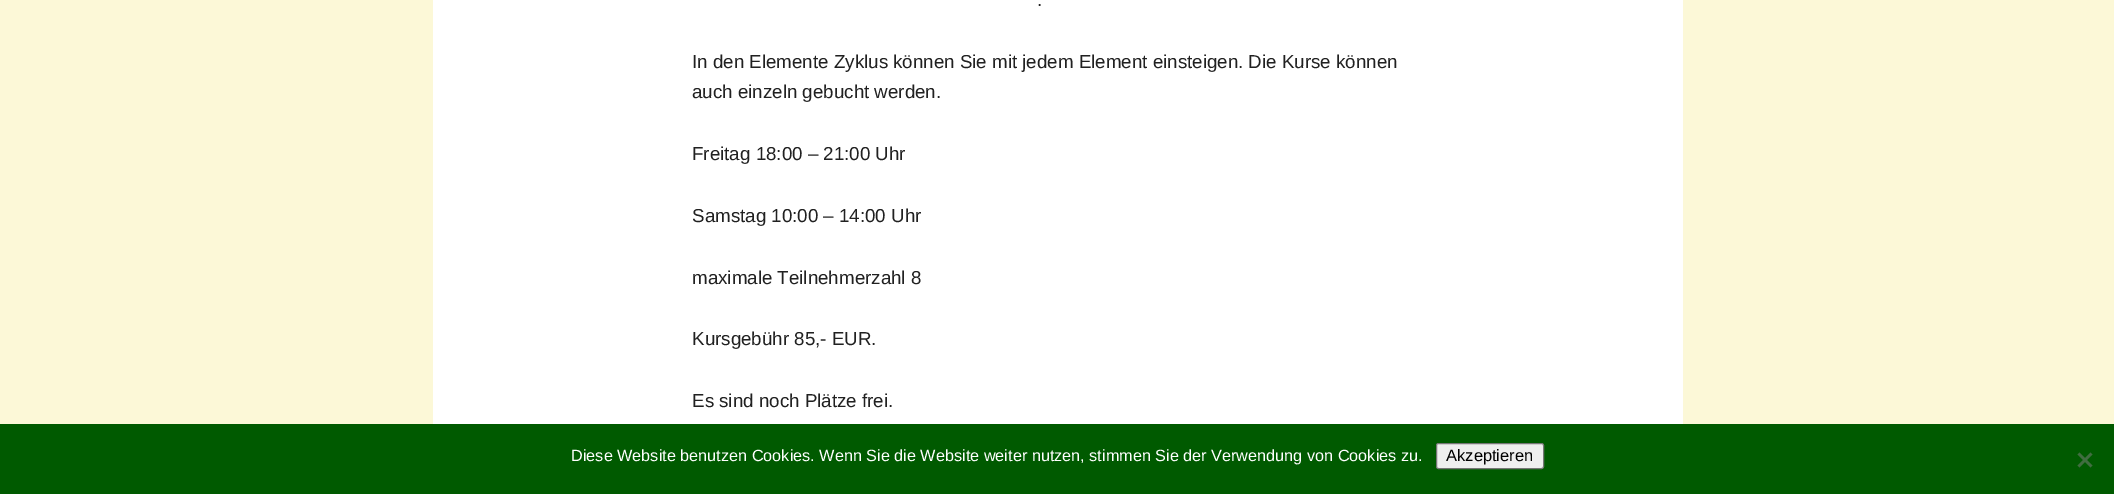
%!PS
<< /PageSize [2114 494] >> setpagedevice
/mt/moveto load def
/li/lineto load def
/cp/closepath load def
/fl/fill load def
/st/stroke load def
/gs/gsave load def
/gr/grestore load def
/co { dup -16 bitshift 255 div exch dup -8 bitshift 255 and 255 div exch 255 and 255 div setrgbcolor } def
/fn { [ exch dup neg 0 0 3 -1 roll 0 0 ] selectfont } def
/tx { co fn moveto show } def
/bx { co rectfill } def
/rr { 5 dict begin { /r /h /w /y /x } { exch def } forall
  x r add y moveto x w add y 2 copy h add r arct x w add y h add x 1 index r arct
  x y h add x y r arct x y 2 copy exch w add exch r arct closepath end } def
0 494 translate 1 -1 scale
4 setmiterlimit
0 0 2114 494 16#FCF8D7 bx
433 0 1250 424 16#FFFFFF bx
0 424 2114 70 16#005A00 bx
16#EFEFEF co
1436.5 443.5 107 25 2 rr gs fl gr
16#767676 co
st
16#406D40 co
2090.5 452.5 mt 2092.5 454.5 li 2079.5 467.5 li 2077.5 465.5 li cp fl
2077.5 454.5 mt 2079.5 452.5 li 2092.5 465.5 li 2090.5 467.5 li cp fl
(.) 1037 6 /LiberationSans-Regular 18.75 16#212121 tx
(In den Elemente Zyklus können Sie mit jedem Element einsteigen. Die Kurse können) 692 68 /LiberationSans-Regular 18.75 16#212121 tx
(auch einzeln gebucht werden.) 692 98 /LiberationSans-Regular 18.75 16#212121 tx
(Freitag 18:00 – 21:00 Uhr) 692 160 /LiberationSans-Regular 18.75 16#212121 tx
(Samstag 10:00 – 14:00 Uhr) 692 222 /LiberationSans-Regular 18.75 16#212121 tx
(maximale Teilnehmerzahl 8) 692 284 /LiberationSans-Regular 18.75 16#212121 tx
(Kursgebühr 85,- EUR.) 692 345 /LiberationSans-Regular 18.75 16#212121 tx
(Es sind noch Plätze frei.) 692 407 /LiberationSans-Regular 18.75 16#212121 tx
(Diese Website benutzen Cookies. Wenn Sie die Website weiter nutzen, stimmen Sie der Verwendung von Cookies zu.) 571 461 /LiberationSans-Regular 16.25 16#FFFFFF tx
(Akzeptieren) 1446 461 /LiberationSans-Regular 16.5 16#000000 tx
showpage
